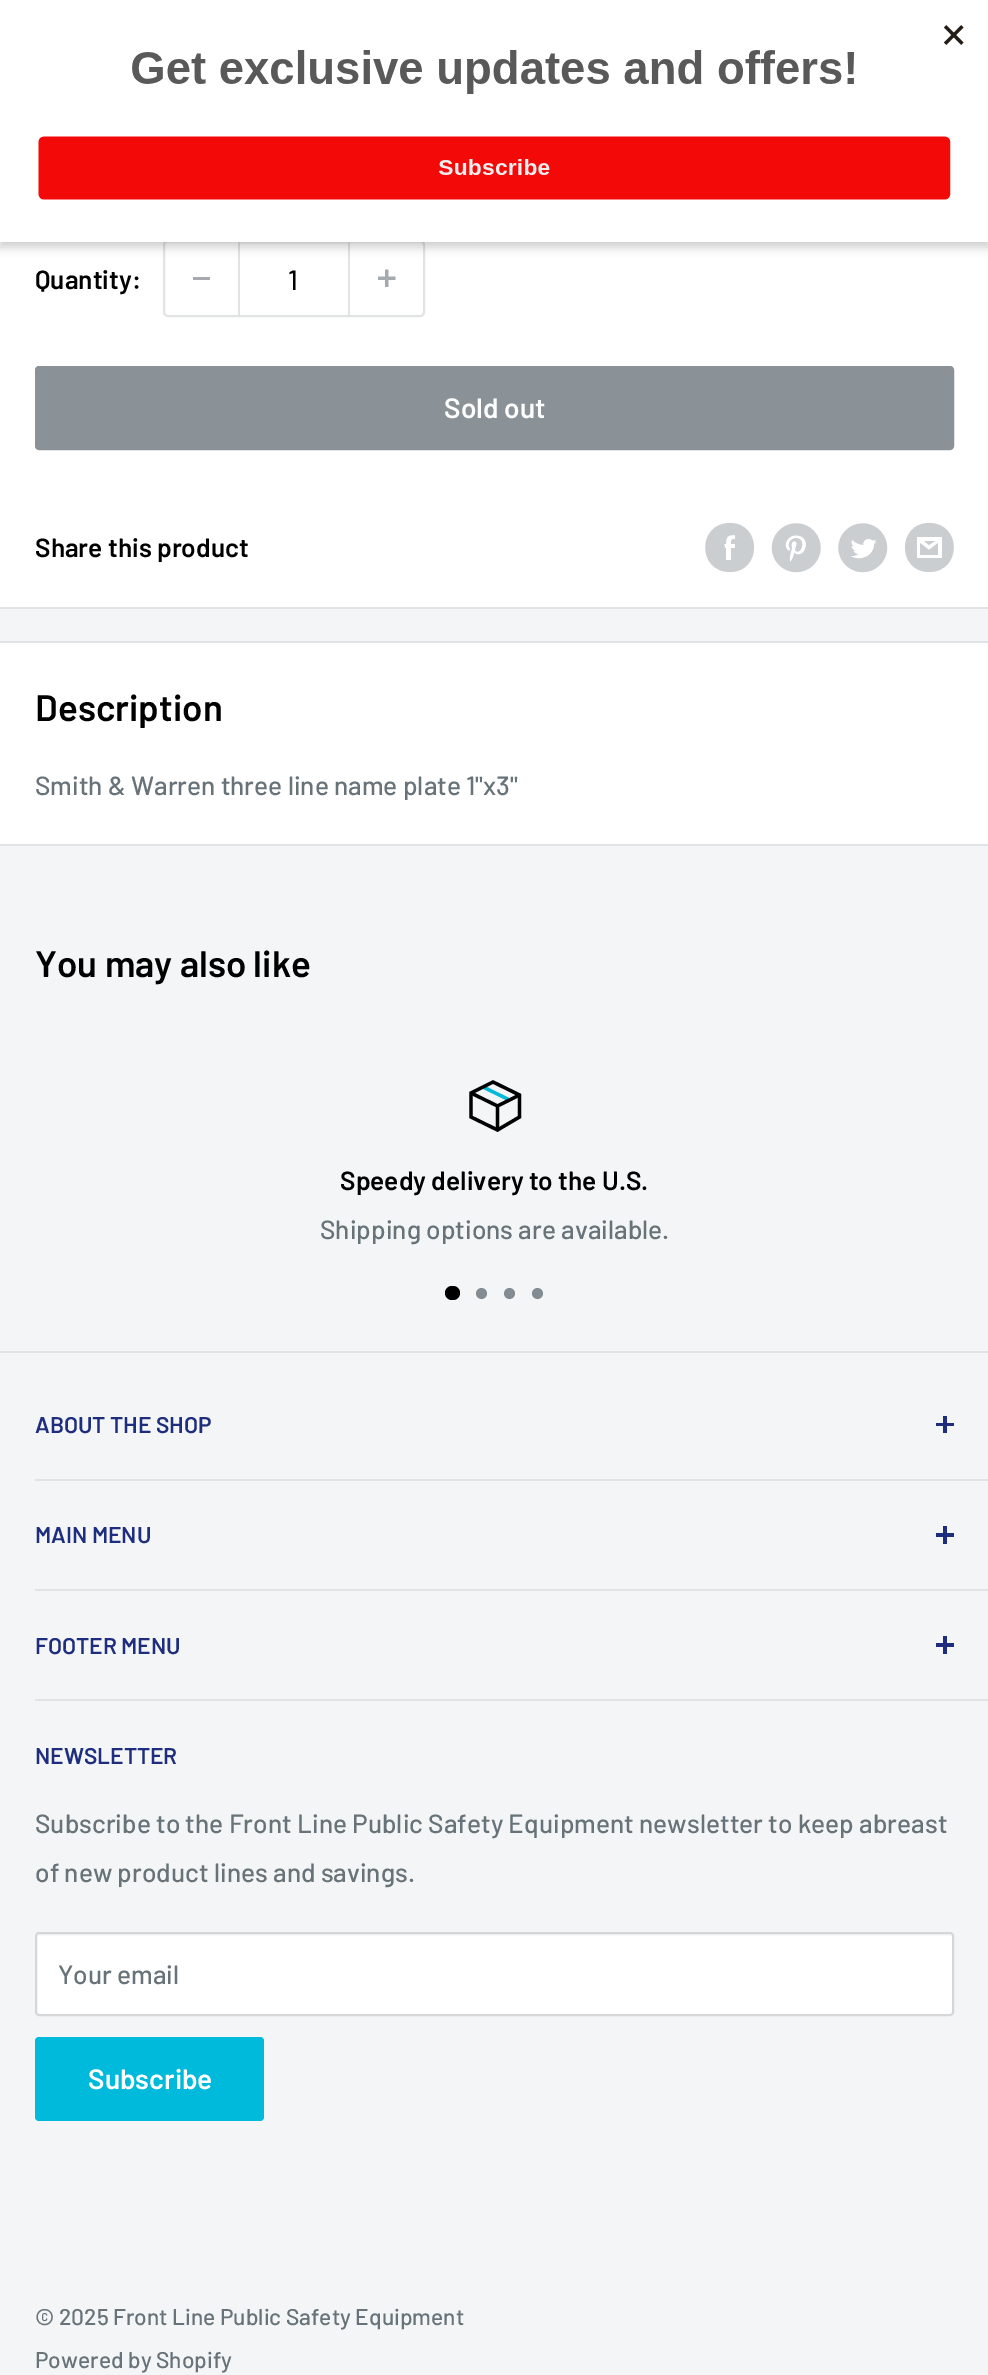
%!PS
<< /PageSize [988 2375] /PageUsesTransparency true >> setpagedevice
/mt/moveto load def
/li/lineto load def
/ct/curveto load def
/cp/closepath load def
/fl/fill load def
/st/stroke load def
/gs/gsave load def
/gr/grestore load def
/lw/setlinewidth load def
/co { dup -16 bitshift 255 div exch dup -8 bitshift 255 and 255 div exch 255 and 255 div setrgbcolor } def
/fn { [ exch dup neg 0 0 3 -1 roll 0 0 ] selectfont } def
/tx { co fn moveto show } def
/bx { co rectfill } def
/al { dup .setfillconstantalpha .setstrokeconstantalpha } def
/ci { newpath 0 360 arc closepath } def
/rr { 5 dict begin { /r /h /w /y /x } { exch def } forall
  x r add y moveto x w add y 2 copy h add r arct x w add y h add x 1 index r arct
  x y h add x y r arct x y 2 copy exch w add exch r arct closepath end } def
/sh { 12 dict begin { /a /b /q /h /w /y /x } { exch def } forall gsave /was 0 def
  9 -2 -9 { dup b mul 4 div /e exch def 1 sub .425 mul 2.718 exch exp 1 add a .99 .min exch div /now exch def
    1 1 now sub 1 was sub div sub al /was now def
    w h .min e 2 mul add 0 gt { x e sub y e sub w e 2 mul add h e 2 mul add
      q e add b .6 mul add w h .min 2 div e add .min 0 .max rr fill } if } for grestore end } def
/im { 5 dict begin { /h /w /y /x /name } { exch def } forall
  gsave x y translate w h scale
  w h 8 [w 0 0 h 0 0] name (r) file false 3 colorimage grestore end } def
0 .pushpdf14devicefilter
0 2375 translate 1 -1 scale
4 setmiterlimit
0 0 988 2375 16#F3F5F6 bx
0 242 988 365 16#FFFFFF bx
16#E1E3E4 co
2 lw
164 241 260 75 4 rr st
240 242 108 2 16#F3F4F4 bx
348 242 2 73 16#E1E3E4 bx
238 242 2 73 16#E1E3E4 bx
16#000000 co
0 5 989 242 0 5 .2 sh
0 0 988 242 16#FFFFFF bx
(media/1.raw) 38 25 926 175 im
0 607 988 2 16#E1E3E4 bx
193 277 17 3 16#A4AAAF bx
(media/2.raw) 378 269 18 18 im
16#8A9297 co
36 367 917 82 3 rr gs fl gr
st
16#CACED0 co
730 572 mt 697 572 697 523 730 523 ct 762 523 762 572 730 572 ct cp 735 544 mt 731 544 li 731 540 731 539 735 539 ct 735 535 li 727 535 726 537 726 544 ct 724 544 li 725 548 li 726 548 li 726 560 li 731 560 li 731 548 li 735 548 li cp eofill
(media/3.raw) 771 523 50 50 im
(media/4.raw) 838 523 50 50 im
929 572 mt 897 572 897 523 929 523 ct 962 523 962 572 929 572 ct cp 924 541 mt 935 541 li 929 545 li cp 938 543 mt 938 555 li 920 555 li 920 543 li 929 550 li cp 942 537 mt 917 537 li 917 558 li 942 558 li cp fl
0 643 988 201 16#FFFFFF bx
0 641 988 2 16#E1E3E4 bx
0 844 988 2 16#E1E3E4 bx
16#00BADB co
3.3 lw
483 1087 mt 509.5 1100 li st
16#000000 co
519.5 1095 mt 497.5 1106 li 471 1093 li 497.5 1106 mt 497.5 1130 li st
2 setlinecap
519.5 1095 mt 519.5 1117 li 497.5 1130 li 471 1117 li 471 1093 li 493 1082 li cp st
445 1286 15 14 7 rr fl
16#838C92 co
481.5 1293.5 5.5 ci fl
509.5 1293.5 5.5 ci fl
537.5 1293.5 5.5 ci fl
0 1351 988 2 16#E1E3E4 bx
35 1479 953 2 16#E1E3E4 bx
943 1416 4 17 16#1E2D7D bx
936 1423 18 3 16#1E2D7D bx
35 1589 953 2 16#E1E3E4 bx
943 1526 4 18 16#1E2D7D bx
936 1533 18 4 16#1E2D7D bx
35 1699 953 2 16#E1E3E4 bx
943 1636 4 18 16#1E2D7D bx
936 1643 18 4 16#1E2D7D bx
16#FFFFFF co
35 1932 919 84 4 rr fl
16#F8F8F8 co
38 1936 mt 950 1936 li 951 1936 952 1936 952 1937 ct 952 1936 li 952 1935 951 1934 950 1934 ct 39 1934 li 38 1934 37 1935 37 1936 ct 37 1937 li cp fl
16#D4D6D8 co
2 lw
0 setlinecap
36 1933 917 82 3 rr st
16#00BADB co
35 2037 229 84 4 rr fl
(Quantity:) 35 289 /Barlow-SemiBold 26.25 16#000000 tx
(1) 288 290 /Barlow-Medium 28 16#000000 tx
(Sold out) 444 418 /Barlow-SemiBold 28 16#FFFFFF tx
(Share this product) 35 557 /Barlow-SemiBold 26.25 16#000000 tx
(Description) 35 721 /Barlow-SemiBold 36.75 16#000000 tx
(Smith & Warren three line name plate 1"x3") 35 795 /Barlow-Medium 26.25 16#677279 tx
(You may also like) 35 977 /Barlow-SemiBold 36.75 16#000000 tx
(Speedy delivery to the U.S.) 340 1190 /Barlow-SemiBold 26.25 16#000000 tx
(Shipping options are available.) 320 1239 /Barlow-Medium 26.25 16#677279 tx
(ABOUT THE SHOP) 35 1433 /Barlow-SemiBold 22.75 16#1E2D7D tx
(MAIN MENU) 35 1543 /Barlow-SemiBold 22.75 16#1E2D7D tx
(FOOTER MENU) 35 1654 /Barlow-SemiBold 22.75 16#1E2D7D tx
(NEWSLETTER) 35 1764 /Barlow-SemiBold 22.75 16#1E2D7D tx
(Subscribe to the Front Line Public Safety Equipment newsletter to keep abreast) 35 1833 /Barlow-Medium 26.25 16#677279 tx
(of new product lines and savings.) 35 1882 /Barlow-Medium 26.25 16#677279 tx
(Your email) 58 1984 /Barlow-Medium 26.25 16#677279 tx
(Subscribe) 88 2089 /Barlow-SemiBold 28 16#FFFFFF tx
(© 2025 Front Line Public Safety Equipment) 35 2325 /Barlow-Medium 22.75 16#677279 tx
(Powered by Shopify) 35 2368 /Barlow-Medium 22.75 16#677279 tx
.poppdf14devicefilter showpage
